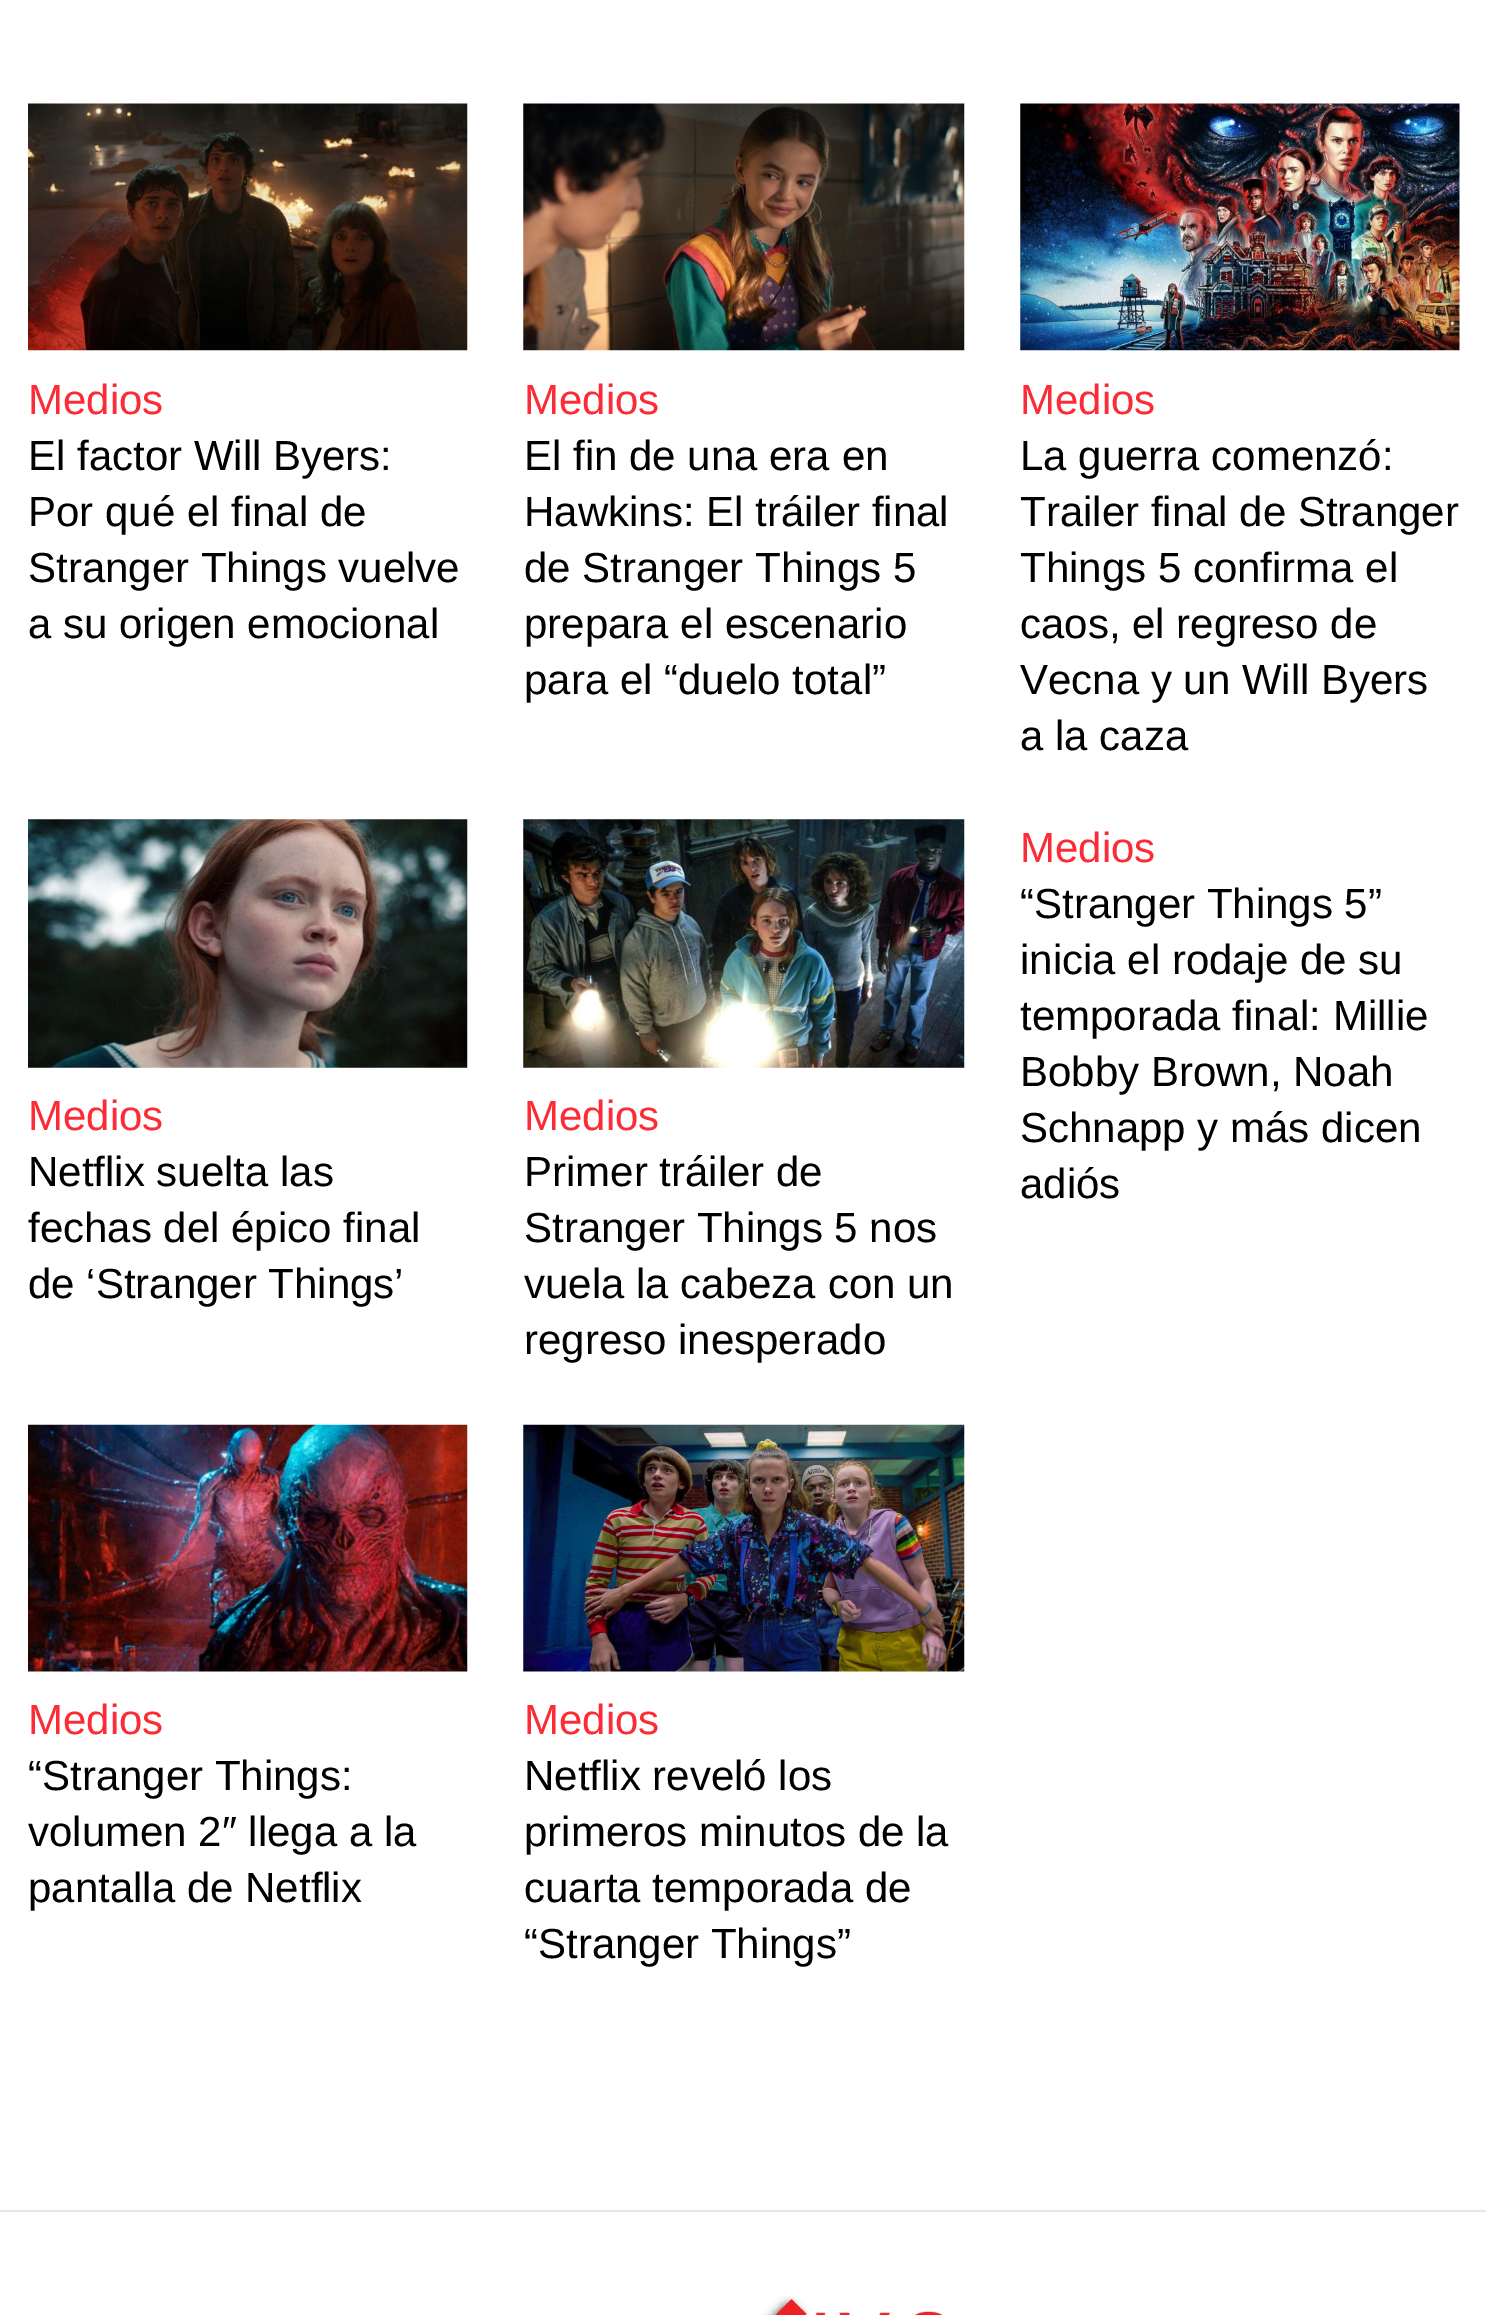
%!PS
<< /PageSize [1486 2315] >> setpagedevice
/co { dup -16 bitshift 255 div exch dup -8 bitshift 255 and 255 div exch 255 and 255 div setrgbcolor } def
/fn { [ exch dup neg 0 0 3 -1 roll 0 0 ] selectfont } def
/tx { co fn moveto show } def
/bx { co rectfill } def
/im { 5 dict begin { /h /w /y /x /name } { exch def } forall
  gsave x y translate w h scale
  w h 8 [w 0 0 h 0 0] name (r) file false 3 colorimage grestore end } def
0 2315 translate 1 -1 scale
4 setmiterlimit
0 0 1486 2315 16#FFFFFF bx
(media/1.raw) 28 103 440 248 im
(media/2.raw) 523 103 442 248 im
(media/3.raw) 1020 103 440 248 im
(media/4.raw) 28 819 440 249 im
(media/5.raw) 523 819 442 249 im
(media/6.raw) 28 1424 440 248 im
(media/7.raw) 523 1424 442 248 im
0 2210 1486 2 16#E5E7EB bx
(media/8.raw) 763 2296 180 19 im
(Medios) 28 414 /LiberationSans-Regular 42 16#FB2C36 tx
(El factor Will Byers:) 28 470 /LiberationSans-Regular 42 16#000000 tx
(Por qué el final de) 28 526 /LiberationSans-Regular 42 16#000000 tx
(Stranger Things vuelve) 28 582 /LiberationSans-Regular 42 16#000000 tx
(a su origen emocional) 28 638 /LiberationSans-Regular 42 16#000000 tx
(Medios) 524 414 /LiberationSans-Regular 42 16#FB2C36 tx
(El fin de una era en) 524 470 /LiberationSans-Regular 42 16#000000 tx
(Hawkins: El tráiler final) 524 526 /LiberationSans-Regular 42 16#000000 tx
(de Stranger Things 5) 524 582 /LiberationSans-Regular 42 16#000000 tx
(prepara el escenario) 524 638 /LiberationSans-Regular 42 16#000000 tx
(para el “duelo total”) 524 694 /LiberationSans-Regular 42 16#000000 tx
(Medios) 1020 414 /LiberationSans-Regular 42 16#FB2C36 tx
(La guerra comenzó:) 1020 470 /LiberationSans-Regular 42 16#000000 tx
(Trailer final de Stranger) 1020 526 /LiberationSans-Regular 42 16#000000 tx
(Things 5 confirma el) 1020 582 /LiberationSans-Regular 42 16#000000 tx
(caos, el regreso de) 1020 638 /LiberationSans-Regular 42 16#000000 tx
(Vecna y un Will Byers) 1020 694 /LiberationSans-Regular 42 16#000000 tx
(a la caza) 1020 750 /LiberationSans-Regular 42 16#000000 tx
(Medios) 28 1130 /LiberationSans-Regular 42 16#FB2C36 tx
(Netflix suelta las) 28 1186 /LiberationSans-Regular 42 16#000000 tx
(fechas del épico final) 28 1242 /LiberationSans-Regular 42 16#000000 tx
(de ‘Stranger Things’) 28 1298 /LiberationSans-Regular 42 16#000000 tx
(Medios) 524 1130 /LiberationSans-Regular 42 16#FB2C36 tx
(Primer tráiler de) 524 1186 /LiberationSans-Regular 42 16#000000 tx
(Stranger Things 5 nos) 524 1242 /LiberationSans-Regular 42 16#000000 tx
(vuela la cabeza con un) 524 1298 /LiberationSans-Regular 42 16#000000 tx
(regreso inesperado) 524 1354 /LiberationSans-Regular 42 16#000000 tx
(Medios) 1020 862 /LiberationSans-Regular 42 16#FB2C36 tx
(“Stranger Things 5”) 1020 918 /LiberationSans-Regular 42 16#000000 tx
(inicia el rodaje de su) 1020 974 /LiberationSans-Regular 42 16#000000 tx
(temporada final: Millie) 1020 1030 /LiberationSans-Regular 42 16#000000 tx
(Bobby Brown, Noah) 1020 1086 /LiberationSans-Regular 42 16#000000 tx
(Schnapp y más dicen) 1020 1142 /LiberationSans-Regular 42 16#000000 tx
(adiós) 1020 1198 /LiberationSans-Regular 42 16#000000 tx
(Medios) 28 1734 /LiberationSans-Regular 42 16#FB2C36 tx
(“Stranger Things:) 28 1790 /LiberationSans-Regular 42 16#000000 tx
(volumen 2″ llega a la) 28 1846 /LiberationSans-Regular 42 16#000000 tx
(pantalla de Netflix) 28 1902 /LiberationSans-Regular 42 16#000000 tx
(Medios) 524 1734 /LiberationSans-Regular 42 16#FB2C36 tx
(Netflix reveló los) 524 1790 /LiberationSans-Regular 42 16#000000 tx
(primeros minutos de la) 524 1846 /LiberationSans-Regular 42 16#000000 tx
(cuarta temporada de) 524 1902 /LiberationSans-Regular 42 16#000000 tx
(“Stranger Things”) 524 1958 /LiberationSans-Regular 42 16#000000 tx
showpage
